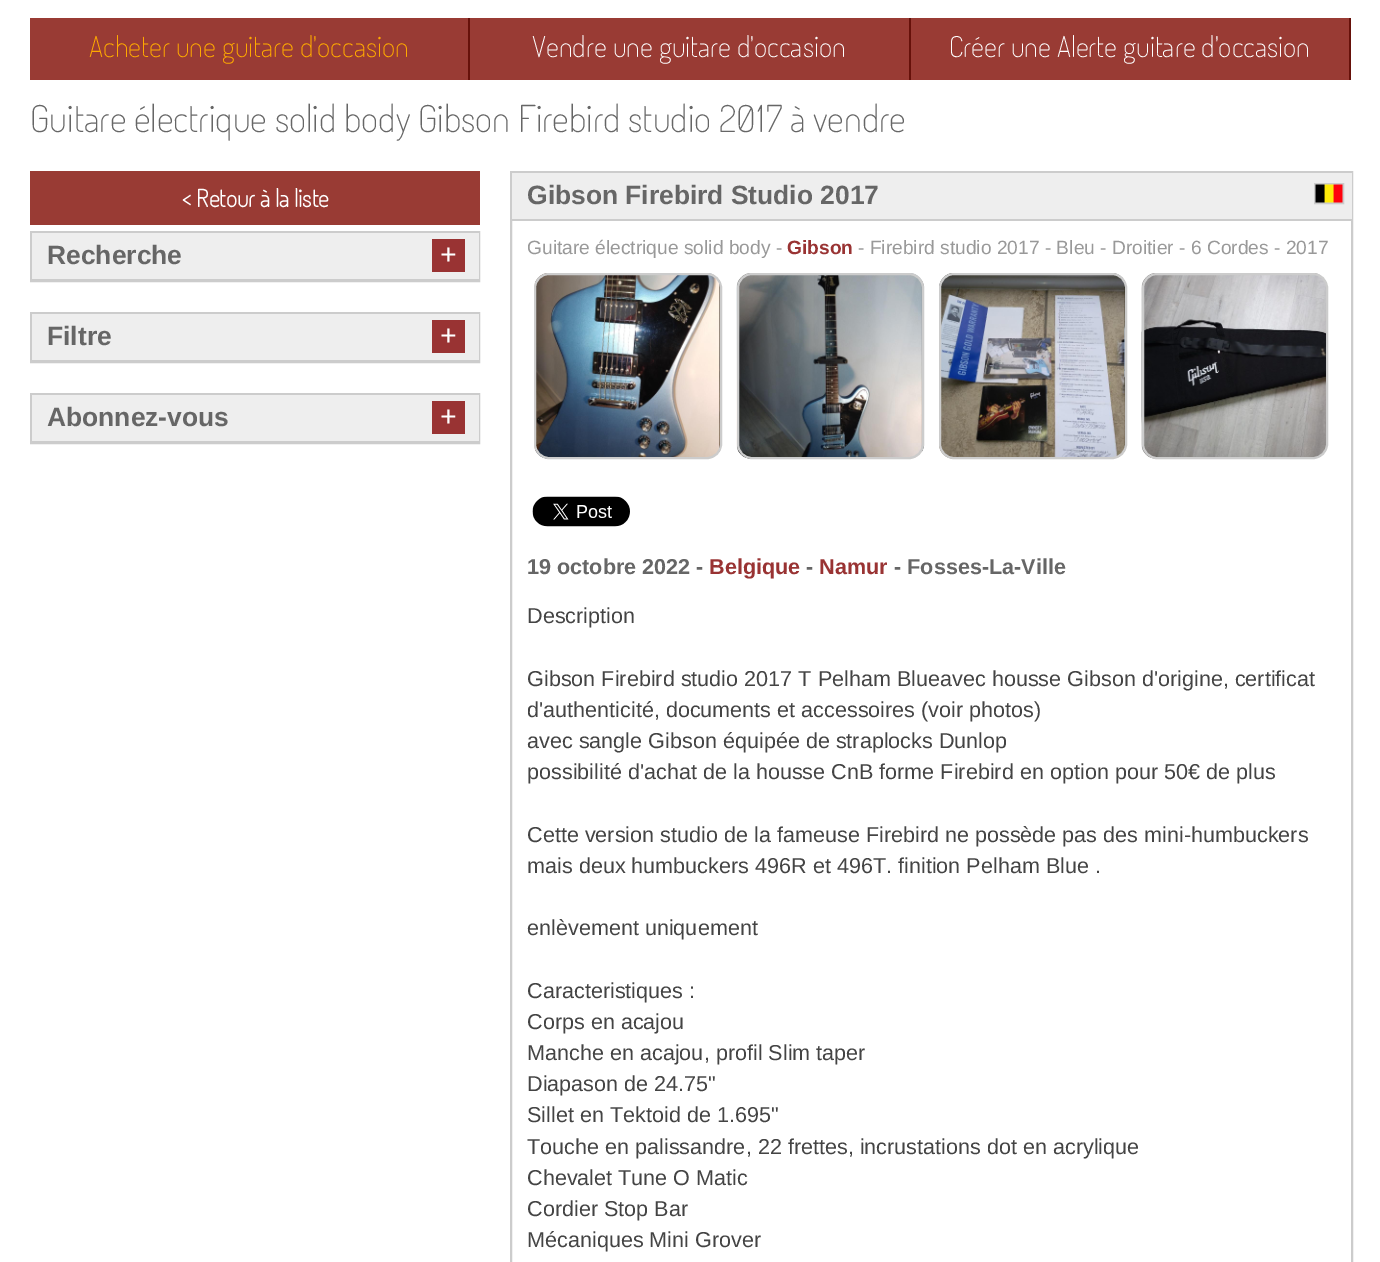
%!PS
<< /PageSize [1380 1262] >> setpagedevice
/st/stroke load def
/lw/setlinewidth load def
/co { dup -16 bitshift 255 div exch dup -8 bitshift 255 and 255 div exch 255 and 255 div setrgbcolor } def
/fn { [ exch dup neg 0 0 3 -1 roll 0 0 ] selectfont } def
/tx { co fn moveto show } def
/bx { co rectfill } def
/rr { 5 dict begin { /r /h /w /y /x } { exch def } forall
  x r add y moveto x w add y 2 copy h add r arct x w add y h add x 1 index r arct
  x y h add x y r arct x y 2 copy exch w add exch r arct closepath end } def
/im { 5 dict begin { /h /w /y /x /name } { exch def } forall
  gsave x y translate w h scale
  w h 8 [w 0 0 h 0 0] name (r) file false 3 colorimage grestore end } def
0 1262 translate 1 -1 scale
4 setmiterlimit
0 0 1380 1262 16#FFFFFF bx
30 18 438 62 16#993B34 bx
468 18 2 62 16#66110A bx
470 18 439 62 16#993B34 bx
909 18 2 62 16#66110A bx
911 18 438 62 16#993B34 bx
1349 18 2 62 16#66110A bx
30 171 450 54 16#993B34 bx
16#CCCCCC co
2 lw
31 232 448 49 rectstroke
32 233 447 46 16#EEEEEE bx
32 279 447 1 16#CCCCCC bx
432 239 33 33 16#993333 bx
16#CCCCCC co
31 313 448 49 rectstroke
32 314 447 46 16#EEEEEE bx
32 360 447 1 16#CCCCCC bx
432 320 33 33 16#993333 bx
16#CCCCCC co
31 394 448 49 rectstroke
32 395 447 46 16#EEEEEE bx
32 441 447 1 16#CCCCCC bx
432 401 33 33 16#993333 bx
16#CCCCCC co
511 172 841 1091 rectstroke
512 173 840 46 16#EEEEEE bx
512 219 840 2 16#CCCCCC bx
1315 184 28 19 rectstroke
(media/1.raw) 1315 184 28 19 im
(media/2.raw) 534 273 188 186 im
535 274 186 184 14 rr st
(media/3.raw) 736 273 188 186 im
738 274 185 184 14 rr st
(media/4.raw) 939 273 188 186 im
940 274 186 184 14 rr st
(media/5.raw) 1141 273 187 186 im
1143 274 184 184 14 rr st
(media/6.raw) 532 496 98 31 im
(Acheter une guitare d'occasion) 89 57 /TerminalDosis-Light 28.75 16#FFAA00 tx
(Vendre une guitare d'occasion) 532 57 /TerminalDosis-Light 28.75 16#FFFFFF tx
(Créer une Alerte guitare d'occasion) 949 57 /TerminalDosis-Light 28.75 16#FFFFFF tx
(Guitare électrique solid body Gibson Firebird studio 2017 à vendre) 30 132 /TerminalDosis-Light 37.2 16#666666 tx
(< Retour à la liste) 182 207 /TerminalDosis-Bold 24 16#FFFFFF tx
(Recherche) 47 264 /LiberationSans-Bold 26.4 16#666666 tx
(+) 440 264 /LiberationSans-Regular 28.75 16#FFFFFF tx
(Filtre) 47 345 /LiberationSans-Bold 26.4 16#666666 tx
(+) 440 345 /LiberationSans-Regular 28.75 16#FFFFFF tx
(Abonnez-vous) 47 426 /LiberationSans-Bold 26.4 16#666666 tx
(+) 440 426 /LiberationSans-Regular 28.75 16#FFFFFF tx
(Gibson Firebird Studio 2017) 527 204 /LiberationSans-Bold 26.4 16#666666 tx
(Guitare électrique solid body -) 527 254 /LiberationSans-Regular 19.2 16#999999 tx
(Gibson) 787 254 /LiberationSans-Bold 19.2 16#993333 tx
(- Firebird studio 2017 - Bleu - Droitier - 6 Cordes - 2017) 858 254 /LiberationSans-Regular 19.2 16#999999 tx
(19 octobre 2022 -) 527 574 /LiberationSans-Bold 21.6 16#666666 tx
(Belgique) 709 574 /LiberationSans-Bold 21.6 16#993333 tx
(-) 806 574 /LiberationSans-Bold 21.6 16#666666 tx
(Namur) 819 574 /LiberationSans-Bold 21.6 16#993333 tx
(- Fosses-La-Ville) 894 574 /LiberationSans-Bold 21.6 16#666666 tx
(Description) 527 623 /LiberationSans-Regular 21.6 16#444444 tx
(Gibson Firebird studio 2017 T Pelham Blueavec housse Gibson d'origine, certificat) 527 686 /LiberationSans-Regular 21.6 16#444444 tx
(d'authenticité, documents et accessoires \(voir photos\)) 527 717 /LiberationSans-Regular 21.6 16#444444 tx
(avec sangle Gibson équipée de straplocks Dunlop) 527 748 /LiberationSans-Regular 21.6 16#444444 tx
(possibilité d'achat de la housse CnB forme Firebird en option pour 50€ de plus) 527 779 /LiberationSans-Regular 21.6 16#444444 tx
(Cette version studio de la fameuse Firebird ne possède pas des mini-humbuckers) 527 842 /LiberationSans-Regular 21.6 16#444444 tx
(mais deux humbuckers 496R et 496T. finition Pelham Blue .) 527 873 /LiberationSans-Regular 21.6 16#444444 tx
(enlèvement uniquement) 527 935 /LiberationSans-Regular 21.6 16#444444 tx
(Caracteristiques :) 527 998 /LiberationSans-Regular 21.6 16#444444 tx
(Corps en acajou) 527 1029 /LiberationSans-Regular 21.6 16#444444 tx
(Manche en acajou, profil Slim taper) 527 1060 /LiberationSans-Regular 21.6 16#444444 tx
(Diapason de 24.75") 527 1091 /LiberationSans-Regular 21.6 16#444444 tx
(Sillet en Tektoid de 1.695") 527 1122 /LiberationSans-Regular 21.6 16#444444 tx
(Touche en palissandre, 22 frettes, incrustations dot en acrylique) 527 1154 /LiberationSans-Regular 21.6 16#444444 tx
(Chevalet Tune O Matic) 527 1185 /LiberationSans-Regular 21.6 16#444444 tx
(Cordier Stop Bar) 527 1216 /LiberationSans-Regular 21.6 16#444444 tx
(Mécaniques Mini Grover) 527 1247 /LiberationSans-Regular 21.6 16#444444 tx
showpage
